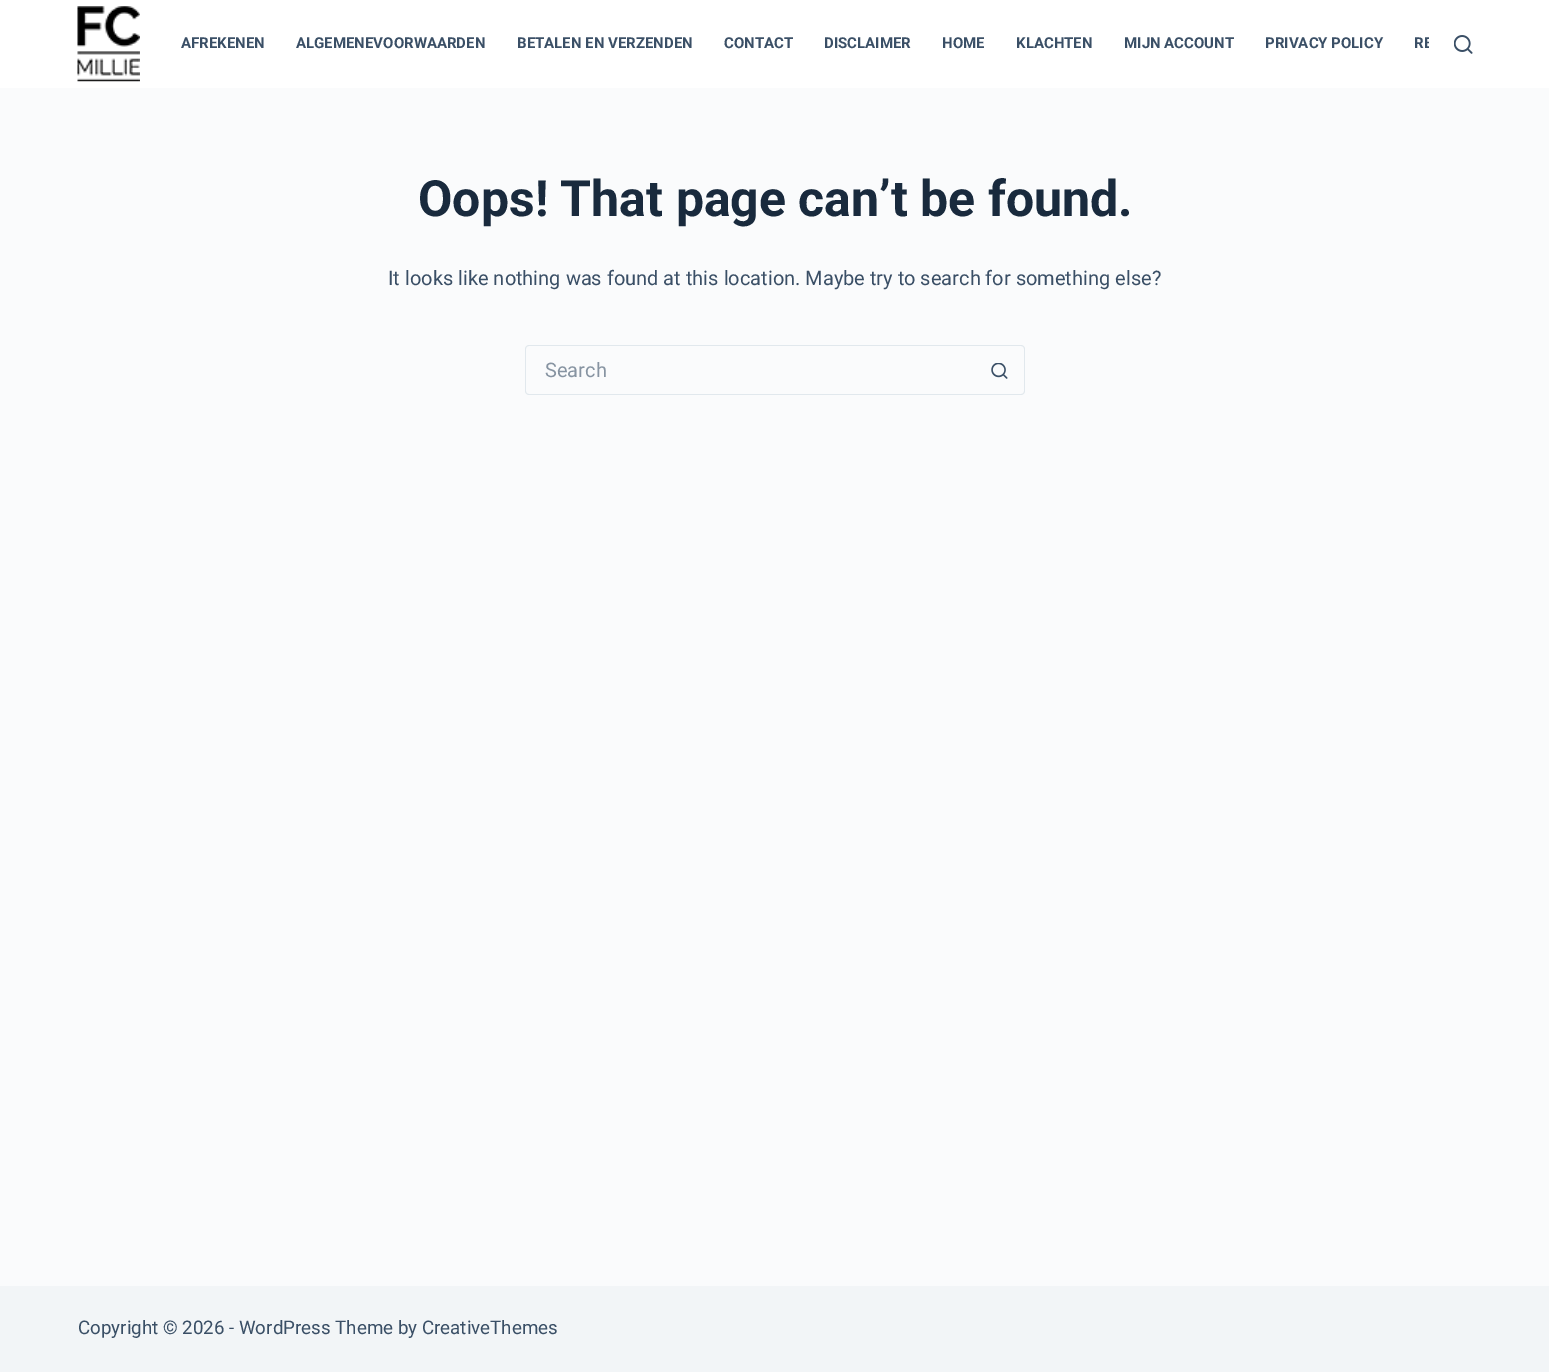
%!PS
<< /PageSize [1549 1372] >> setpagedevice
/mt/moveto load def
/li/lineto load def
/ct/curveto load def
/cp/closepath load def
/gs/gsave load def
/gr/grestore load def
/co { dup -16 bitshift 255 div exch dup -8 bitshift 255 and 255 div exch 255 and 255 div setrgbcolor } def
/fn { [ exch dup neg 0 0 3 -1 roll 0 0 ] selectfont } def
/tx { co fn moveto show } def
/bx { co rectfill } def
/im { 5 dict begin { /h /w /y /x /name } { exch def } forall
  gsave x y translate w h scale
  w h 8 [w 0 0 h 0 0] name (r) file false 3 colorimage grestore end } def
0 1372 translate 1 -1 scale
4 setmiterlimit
0 0 1549 1372 16#FAFBFC bx
0 0 1549 88 16#FFFFFF bx
(media/1.raw) 77 6 63 76 im
(media/2.raw) 1454 35 19 19 im
16#E1E8ED co
529 345 mt 975 345 li 975 395 li 529 395 li 527 395 525 393 525 391 ct 525 349 li 525 347 527 345 529 345 ct cp 529 346 mt 975 346 li 975 394 li 529 394 li 527 394 526 393 526 391 ct 526 349 li 526 347 527 346 529 346 ct cp eofill
975 345 mt 1021 345 li 1023 345 1025 347 1025 349 ct 1025 391 li 1025 393 1023 395 1021 395 ct 975 395 li cp 975 346 mt 1021 346 li 1023 346 1024 347 1024 349 ct 1024 391 li 1024 393 1023 394 1021 394 ct 975 394 li cp eofill
(media/3.raw) 991 363 17 16 im
0 1286 1549 86 16#F2F5F7 bx
(AFREKENEN) 181 48 /Roboto-Bold 15 16#3A4F66 tx
(ALGEMENEVOORWAARDEN) 296 48 /Roboto-Bold 15 16#3A4F66 tx
(BETALEN EN VERZENDEN) 517 48 /Roboto-Bold 15 16#3A4F66 tx
(CONTACT) 724 48 /Roboto-Bold 15 16#3A4F66 tx
(DISCLAIMER) 824 48 /Roboto-Bold 15 16#3A4F66 tx
(HOME) 942 48 /Roboto-Bold 15 16#3A4F66 tx
(KLACHTEN) 1016 48 /Roboto-Bold 15 16#3A4F66 tx
(MIJN ACCOUNT) 1124 48 /Roboto-Bold 15 16#3A4F66 tx
(PRIVACY POLICY) 1265 48 /Roboto-Bold 15 16#3A4F66 tx
gs
165 0 1264 88 rectclip
(RE) 1414 48 /Roboto-Bold 15 16#3A4F66 tx
gr
(Oops! That page can’t be found.) 418 216 /Roboto-Bold 50 16#192A3D tx
(It looks like nothing was found at this location. Maybe try to search for something else?) 388 285 /Roboto-Regular 20 16#3A4F66 tx
(Search) 545 377 /Roboto-Regular 20 16#8794A2 tx
(Copyright © 2026 - WordPress Theme by CreativeThemes) 78 1334 /Roboto-Regular 18.75 16#3A4F66 tx
showpage
